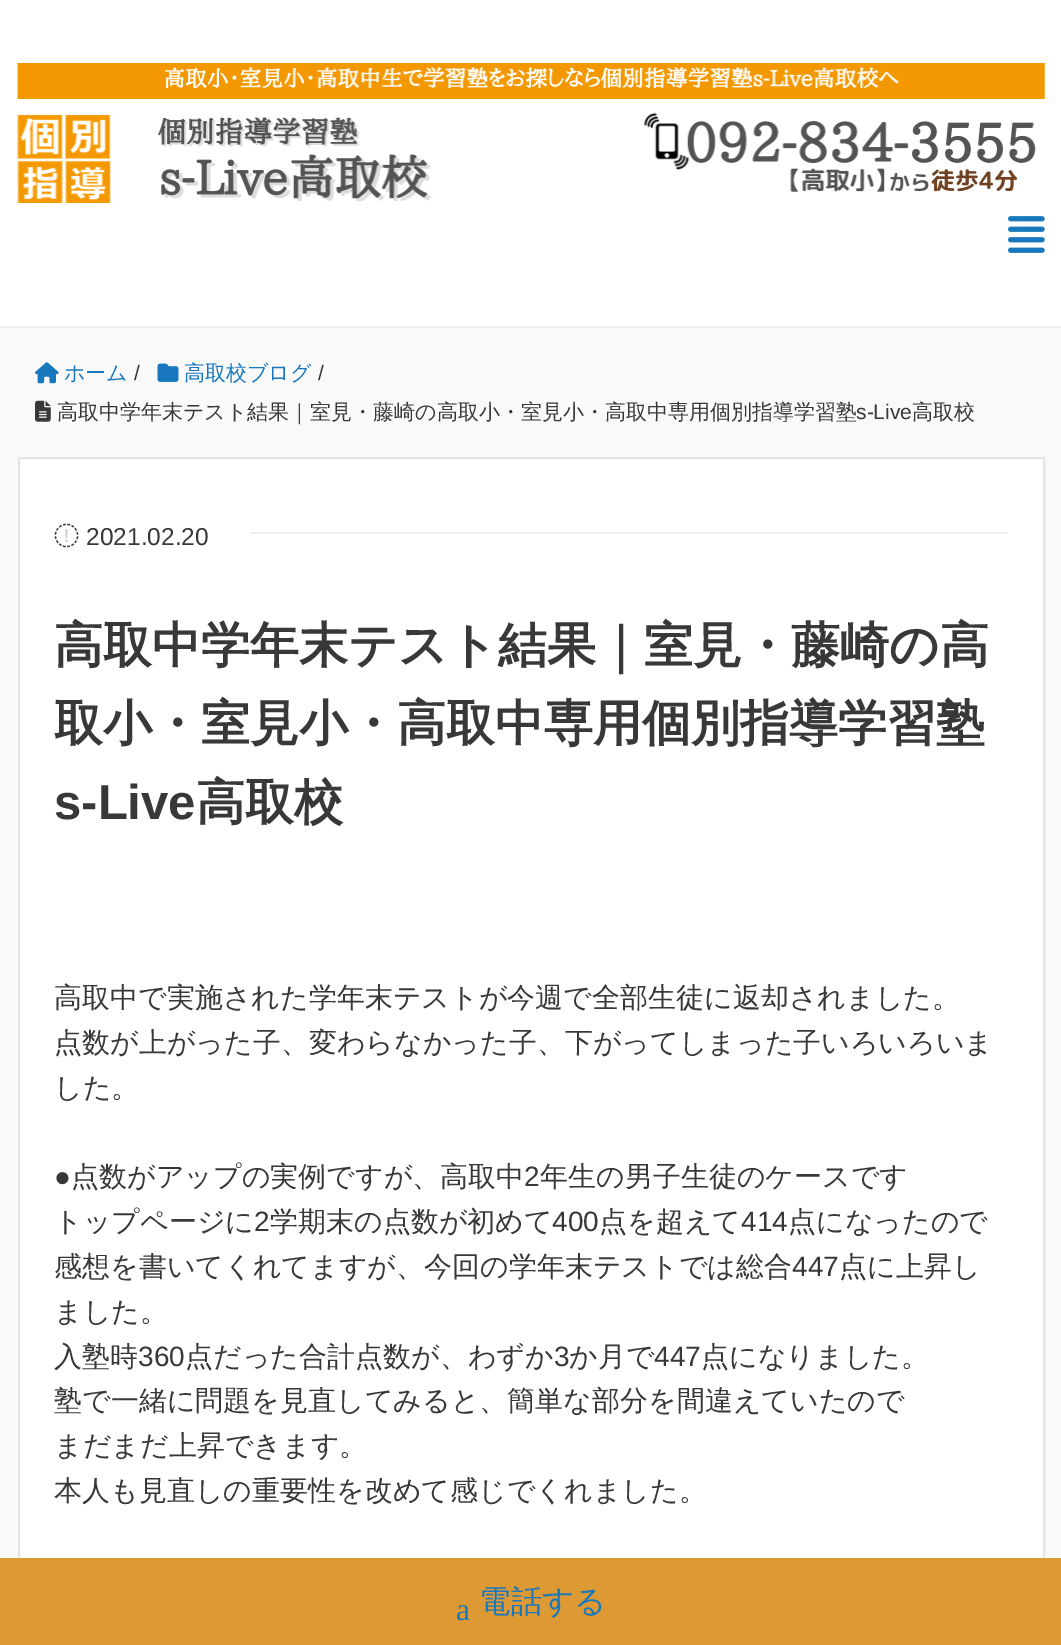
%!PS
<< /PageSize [1061 1645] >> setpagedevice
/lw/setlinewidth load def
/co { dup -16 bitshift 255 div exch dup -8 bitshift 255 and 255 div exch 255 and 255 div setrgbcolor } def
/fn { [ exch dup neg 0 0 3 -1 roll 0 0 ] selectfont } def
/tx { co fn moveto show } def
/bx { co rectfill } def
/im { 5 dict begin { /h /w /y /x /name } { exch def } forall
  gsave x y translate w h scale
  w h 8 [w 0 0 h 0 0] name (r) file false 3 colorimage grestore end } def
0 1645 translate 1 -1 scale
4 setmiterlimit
0 0 1061 1645 16#F9F9F9 bx
0 0 1061 326 16#FFFFFF bx
0 326 1061 2 16#EFEFEF bx
(media/1.raw) 17 63 1028 140 im
(media/2.raw) 1008 216 37 37 im
(media/3.raw) 35 362 24 22 im
(media/4.raw) 157 363 22 19 im
(media/5.raw) 35 400 16 22 im
20 459 1023 1099 16#FFFFFF bx
16#E5E5E5 co
2 lw
19 458 1025 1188 rectstroke
250 532 758 2 16#EFEFEF bx
(media/6.raw) 54 523 25 25 im
0 1558 1061 87 16#DD9933 bx
(ホーム) 64 380 /WenQuanYiZenHei-Medium 21 16#1877BD tx
(/) 134 380 /LiberationSans-Regular 21 16#383838 tx
(高取校ブログ) 184 380 /WenQuanYiZenHei-Medium 21 16#1877BD tx
(/) 318 380 /LiberationSans-Regular 21 16#383838 tx
(高取中学年末テスト結果｜室見・藤崎の高取小・室見小・高取中専用個別指導学習塾) 57 419 /WenQuanYiZenHei-Medium 21 16#383838 tx
(s-Live) 856 419 /LiberationSans-Regular 21 16#383838 tx
(高取校) 912 419 /WenQuanYiZenHei-Medium 21 16#383838 tx
(2021.02.20) 86 545 /LiberationSans-Regular 24.5 16#383838 tx
(高取中学年末テスト結果｜室見・藤崎の高) 54 662 /WenQuanYiZenHei-Bold 49 16#383838 tx
(取小・室見小・高取中専用個別指導学習塾) 54 740 /WenQuanYiZenHei-Bold 49 16#383838 tx
(s-Live) 54 819 /LiberationSans-Bold 49 16#383838 tx
(高取校) 196 819 /WenQuanYiZenHei-Bold 49 16#383838 tx
(高取中で実施された学年末テストが今週で全部生徒に返却されました。) 54 1007 /WenQuanYiZenHei-Medium 28 16#383838 tx
(点数が上がった子、変わらなかった子、下がってしまった子いろいろいま) 54 1052 /WenQuanYiZenHei-Medium 28 16#383838 tx
(した。) 54 1097 /WenQuanYiZenHei-Medium 28 16#383838 tx
(●) 54 1186 /LiberationSans-Regular 28 16#383838 tx
(点数がアップの実例ですが、高取中) 71 1186 /WenQuanYiZenHei-Medium 28 16#383838 tx
(2) 524 1186 /LiberationSans-Regular 28 16#383838 tx
(年生の男子生徒のケースです) 540 1186 /WenQuanYiZenHei-Medium 28 16#383838 tx
(トップページに) 54 1231 /WenQuanYiZenHei-Medium 28 16#383838 tx
(2) 254 1231 /LiberationSans-Regular 28 16#383838 tx
(学期末の点数が初めて) 270 1231 /WenQuanYiZenHei-Medium 28 16#383838 tx
(400) 552 1231 /LiberationSans-Regular 28 16#383838 tx
(点を超えて) 599 1231 /WenQuanYiZenHei-Medium 28 16#383838 tx
(414) 741 1231 /LiberationSans-Regular 28 16#383838 tx
(点になったので) 788 1231 /WenQuanYiZenHei-Medium 28 16#383838 tx
(感想を書いてくれてますが、今回の学年末テストでは総合) 54 1276 /WenQuanYiZenHei-Medium 28 16#383838 tx
(447) 792 1276 /LiberationSans-Regular 28 16#383838 tx
(点に上昇し) 839 1276 /WenQuanYiZenHei-Medium 28 16#383838 tx
(ました。) 54 1321 /WenQuanYiZenHei-Medium 28 16#383838 tx
(入塾時) 54 1366 /WenQuanYiZenHei-Medium 28 16#383838 tx
(360) 138 1366 /LiberationSans-Regular 28 16#383838 tx
(点だった合計点数が、わずか) 185 1366 /WenQuanYiZenHei-Medium 28 16#383838 tx
(3) 554 1366 /LiberationSans-Regular 28 16#383838 tx
(か月で) 569 1366 /WenQuanYiZenHei-Medium 28 16#383838 tx
(447) 654 1366 /LiberationSans-Regular 28 16#383838 tx
(点になりました。) 701 1366 /WenQuanYiZenHei-Medium 28 16#383838 tx
(塾で一緒に問題を見直してみると、簡単な部分を間違えていたので) 54 1410 /WenQuanYiZenHei-Medium 28 16#383838 tx
(まだまだ上昇できます。) 54 1455 /WenQuanYiZenHei-Medium 28 16#383838 tx
(本人も見直しの重要性を改めて感じでくれました。) 54 1500 /WenQuanYiZenHei-Medium 28 16#383838 tx
(a) 456 1620 /LiberationSerif-Regular 31.5 16#1877BD tx
(電話する) 479 1612 /WenQuanYiZenHei-Medium 31.5 16#1877BD tx
showpage
